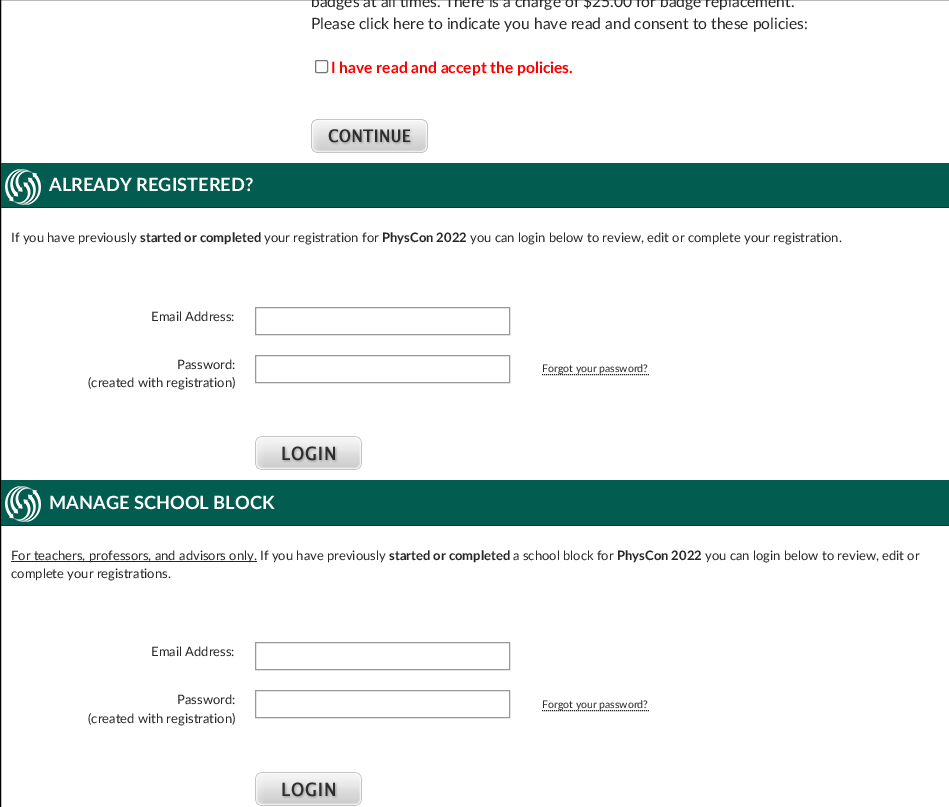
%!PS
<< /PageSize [949 807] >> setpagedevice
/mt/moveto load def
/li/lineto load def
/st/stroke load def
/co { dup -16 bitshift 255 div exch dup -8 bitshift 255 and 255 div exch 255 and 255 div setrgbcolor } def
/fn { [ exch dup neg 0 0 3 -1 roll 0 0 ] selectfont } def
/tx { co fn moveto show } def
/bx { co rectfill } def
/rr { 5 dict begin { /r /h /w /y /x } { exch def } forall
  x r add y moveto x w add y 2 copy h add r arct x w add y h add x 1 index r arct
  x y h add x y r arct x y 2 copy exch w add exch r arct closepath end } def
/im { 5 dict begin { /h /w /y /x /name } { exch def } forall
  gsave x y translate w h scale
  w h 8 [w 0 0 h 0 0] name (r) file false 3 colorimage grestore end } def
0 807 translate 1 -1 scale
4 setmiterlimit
0 0 949 807 16#FFFFFF bx
16#000000 co
.5 -.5 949 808 rectstroke
16#767676 co
315.5 60.5 12 12 1.5 rr st
(media/1.raw) 311 119 117 34 im
1 163 948 44 16#035C50 bx
(media/2.raw) 5 169 36 36 im
1 207 948 1 16#272727 bx
16#999999 co
255.5 307.5 254 27 rectstroke
255.5 355.5 254 27 rectstroke
16#272727 co
[1 1] 0 setdash
542 374.5 mt 649 374.5 li st
(media/3.raw) 255 436 107 34 im
1 480 948 45 16#035C50 bx
(media/2.raw) 5 486 36 36 im
1 525 948 1 16#272727 bx
11 561 246 1 16#272727 bx
16#999999 co
[] 0 setdash
255.5 642.5 254 27 rectstroke
255.5 690.5 254 27 rectstroke
16#272727 co
[1 1] 0 setdash
542 710.5 mt 649 710.5 li st
(media/3.raw) 255 772 107 34 im
(badges at all times. There is a charge of $25.00 for badge replacement.) 311 7 /Lato-Regular 15.6 16#272727 tx
(Please click here to indicate you have read and consent to these policies:) 311 29 /Lato-Regular 15.6 16#272727 tx
(I have read and accept the policies.) 331 73 /Lato-Bold 15.6 16#FF0000 tx
(ALREADY REGISTERED?) 49 191 /Lato-Bold 18.25 16#FFFFFF tx
(If you have previously) 11 242 /Lato-Regular 13 16#272727 tx
(started or completed) 140 242 /Lato-Bold 13 16#272727 tx
(your registration for) 264 242 /Lato-Regular 13 16#272727 tx
(PhysCon 2022) 382 242 /Lato-Bold 13 16#272727 tx
(you can login below to review, edit or complete your registration.) 470 242 /Lato-Regular 13 16#272727 tx
(Email Address:) 151 321 /Lato-Regular 13 16#272727 tx
(Password:) 177 369 /Lato-Regular 13 16#272727 tx
(\(created with registration\)) 88 387 /Lato-Regular 13 16#272727 tx
(Forgot your password?) 542 372 /Lato-Regular 10.5 16#272727 tx
(MANAGE SCHOOL BLOCK) 49 509 /Lato-Bold 18.25 16#FFFFFF tx
(For teachers, professors, and advisors only. If you have previously) 11 560 /Lato-Regular 13 16#272727 tx
(started or completed) 389 560 /Lato-Bold 13 16#272727 tx
(a school block for) 513 560 /Lato-Regular 13 16#272727 tx
(PhysCon 2022) 617 560 /Lato-Bold 13 16#272727 tx
(you can login below to review, edit or) 705 560 /Lato-Regular 13 16#272727 tx
(complete your registrations.) 11 578 /Lato-Regular 13 16#272727 tx
(Email Address:) 151 656 /Lato-Regular 13 16#272727 tx
(Password:) 177 704 /Lato-Regular 13 16#272727 tx
(\(created with registration\)) 88 723 /Lato-Regular 13 16#272727 tx
(Forgot your password?) 542 708 /Lato-Regular 10.5 16#272727 tx
showpage
